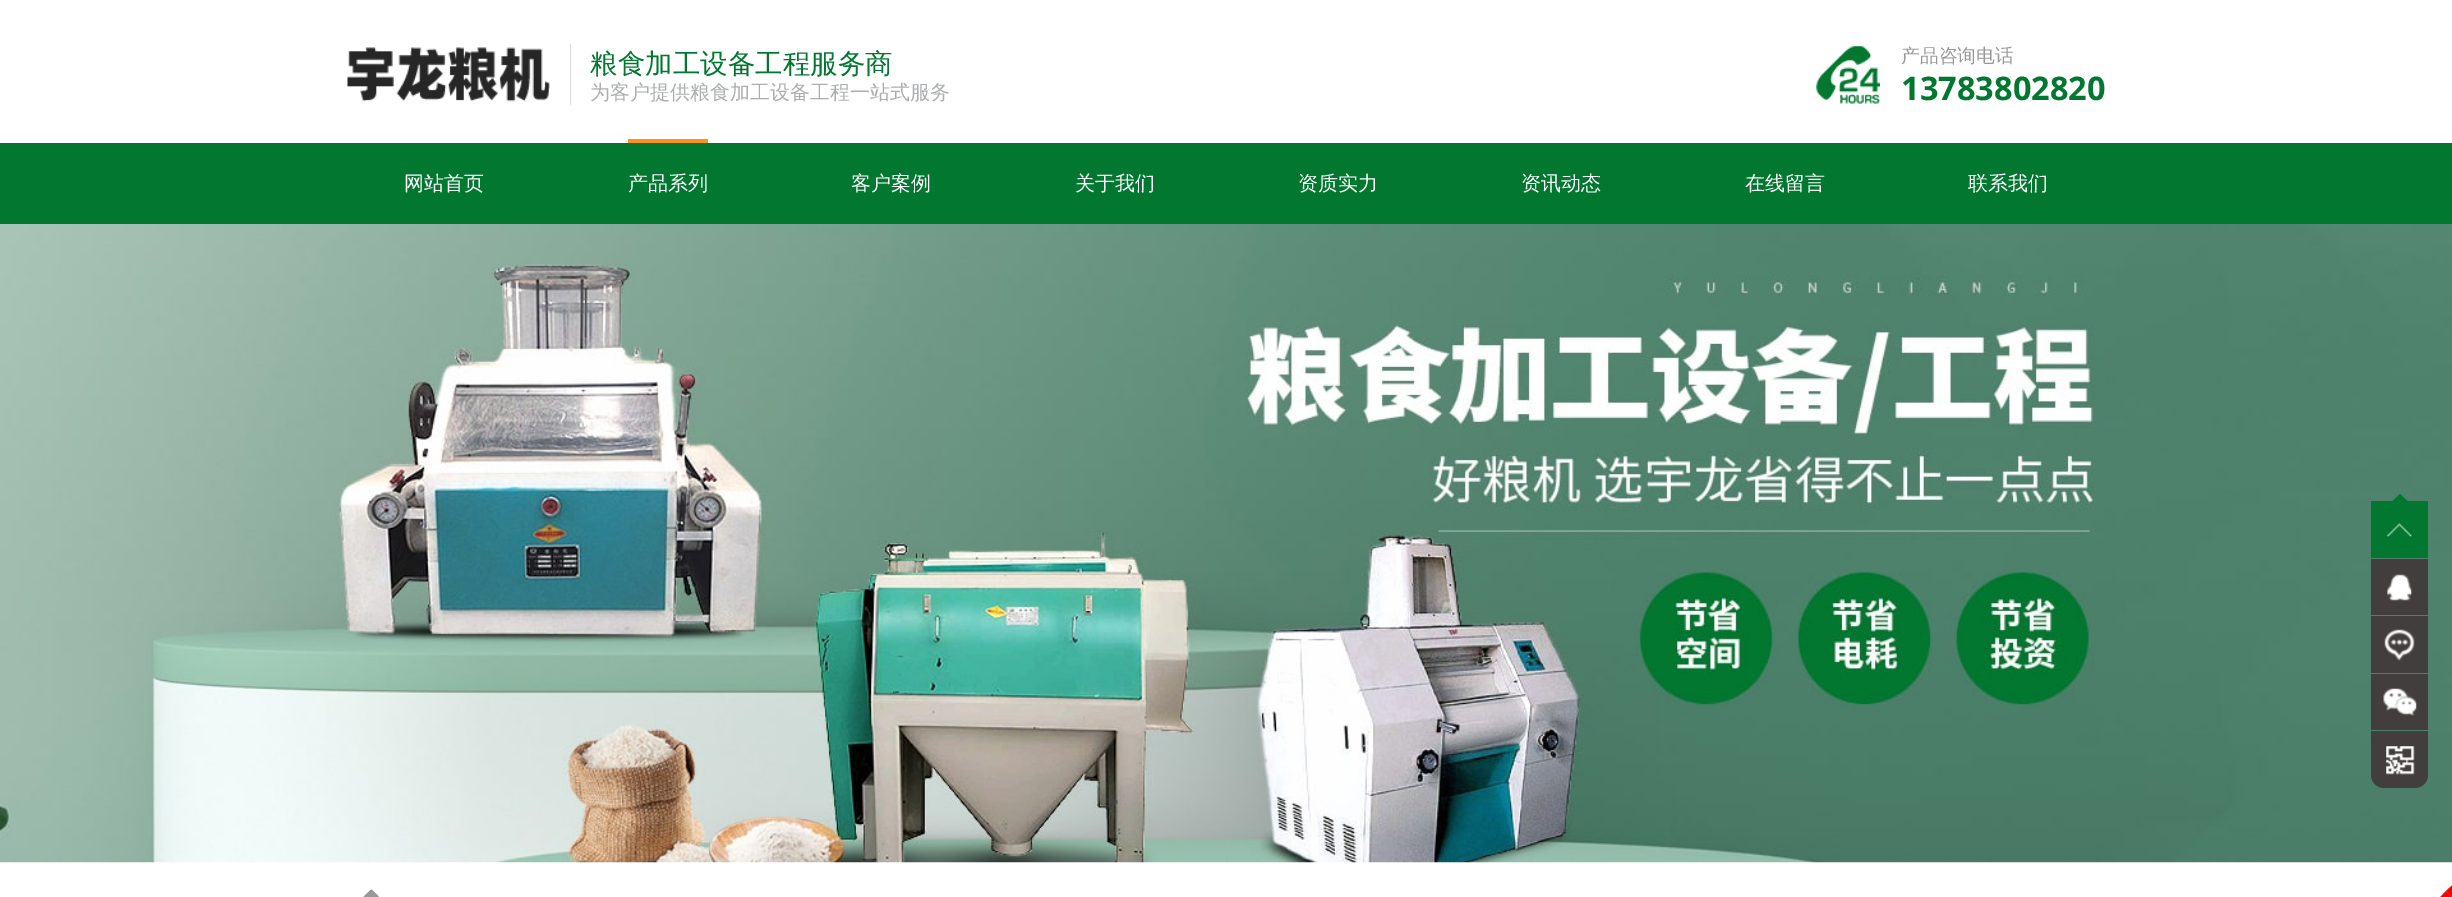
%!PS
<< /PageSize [2452 897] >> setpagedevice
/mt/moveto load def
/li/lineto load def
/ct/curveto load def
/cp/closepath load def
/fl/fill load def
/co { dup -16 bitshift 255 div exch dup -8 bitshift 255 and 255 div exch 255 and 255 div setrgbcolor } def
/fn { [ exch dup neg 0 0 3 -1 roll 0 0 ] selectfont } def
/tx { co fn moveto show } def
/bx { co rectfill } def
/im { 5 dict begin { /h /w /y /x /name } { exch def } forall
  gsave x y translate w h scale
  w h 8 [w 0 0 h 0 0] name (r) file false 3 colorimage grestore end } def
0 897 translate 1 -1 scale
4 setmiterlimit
0 0 2452 897 16#FFFFFF bx
(media/1.raw) 347 47 203 55 im
570 44 1 61 16#DCDCDC bx
(media/2.raw) 1816 46 64 58 im
0 143 2452 81 16#027730 bx
628 139 80 4 16#FB9316 bx
(media/3.raw) 0 224 2452 639 im
16#027730 co
2407.5 501 mt 2392.5 501 li 2400 494 li cp fl
2371 501 57 57 16#027730 bx
(media/4.raw) 2387 523 25 14 im
2371 559 57 56 16#423E3D bx
(media/5.raw) 2387 574 25 27 im
2371 616 57 57 16#423E3D bx
(media/6.raw) 2384 629 31 32 im
2371 674 57 56 16#423E3D bx
(media/7.raw) 2383 688 34 28 im
2371 731 mt 2428 731 li 2428 775 li 2428 782 2422 788 2415 788 ct 2384 788 li 2377 788 2371 782 2371 775 ct cp fl
(media/8.raw) 2386 746 29 29 im
(media/9.raw) 363 889 16 8 im
16#FF0000 co
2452.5 885 mt 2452.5 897.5 li 2446 891 li cp fl
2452.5 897.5 mt 2440 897.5 li 2446 891 li cp fl
(粮食加工设备工程服务商) 590 73 /WenQuanYiZenHei-Medium 27.5 16#027730 tx
(为客户提供粮食加工设备工程一站式服务) 590 99 /WenQuanYiZenHei-Medium 20 16#ACAEAF tx
(产品咨询电话) 1901 62 /WenQuanYiZenHei-Medium 18.75 16#999999 tx
(13783802820) 1901 100 /NotoSans-Bold 32.5 16#027730 tx
(网站首页) 404 190 /WenQuanYiZenHei-Medium 20 16#FFFFFF tx
(产品系列) 628 190 /WenQuanYiZenHei-Medium 20 16#FFFFFF tx
(客户案例) 851 190 /WenQuanYiZenHei-Medium 20 16#FFFFFF tx
(关于我们) 1075 190 /WenQuanYiZenHei-Medium 20 16#FFFFFF tx
(资质实力) 1298 190 /WenQuanYiZenHei-Medium 20 16#FFFFFF tx
(资讯动态) 1521 190 /WenQuanYiZenHei-Medium 20 16#FFFFFF tx
(在线留言) 1745 190 /WenQuanYiZenHei-Medium 20 16#FFFFFF tx
(联系我们) 1968 190 /WenQuanYiZenHei-Medium 20 16#FFFFFF tx
showpage
